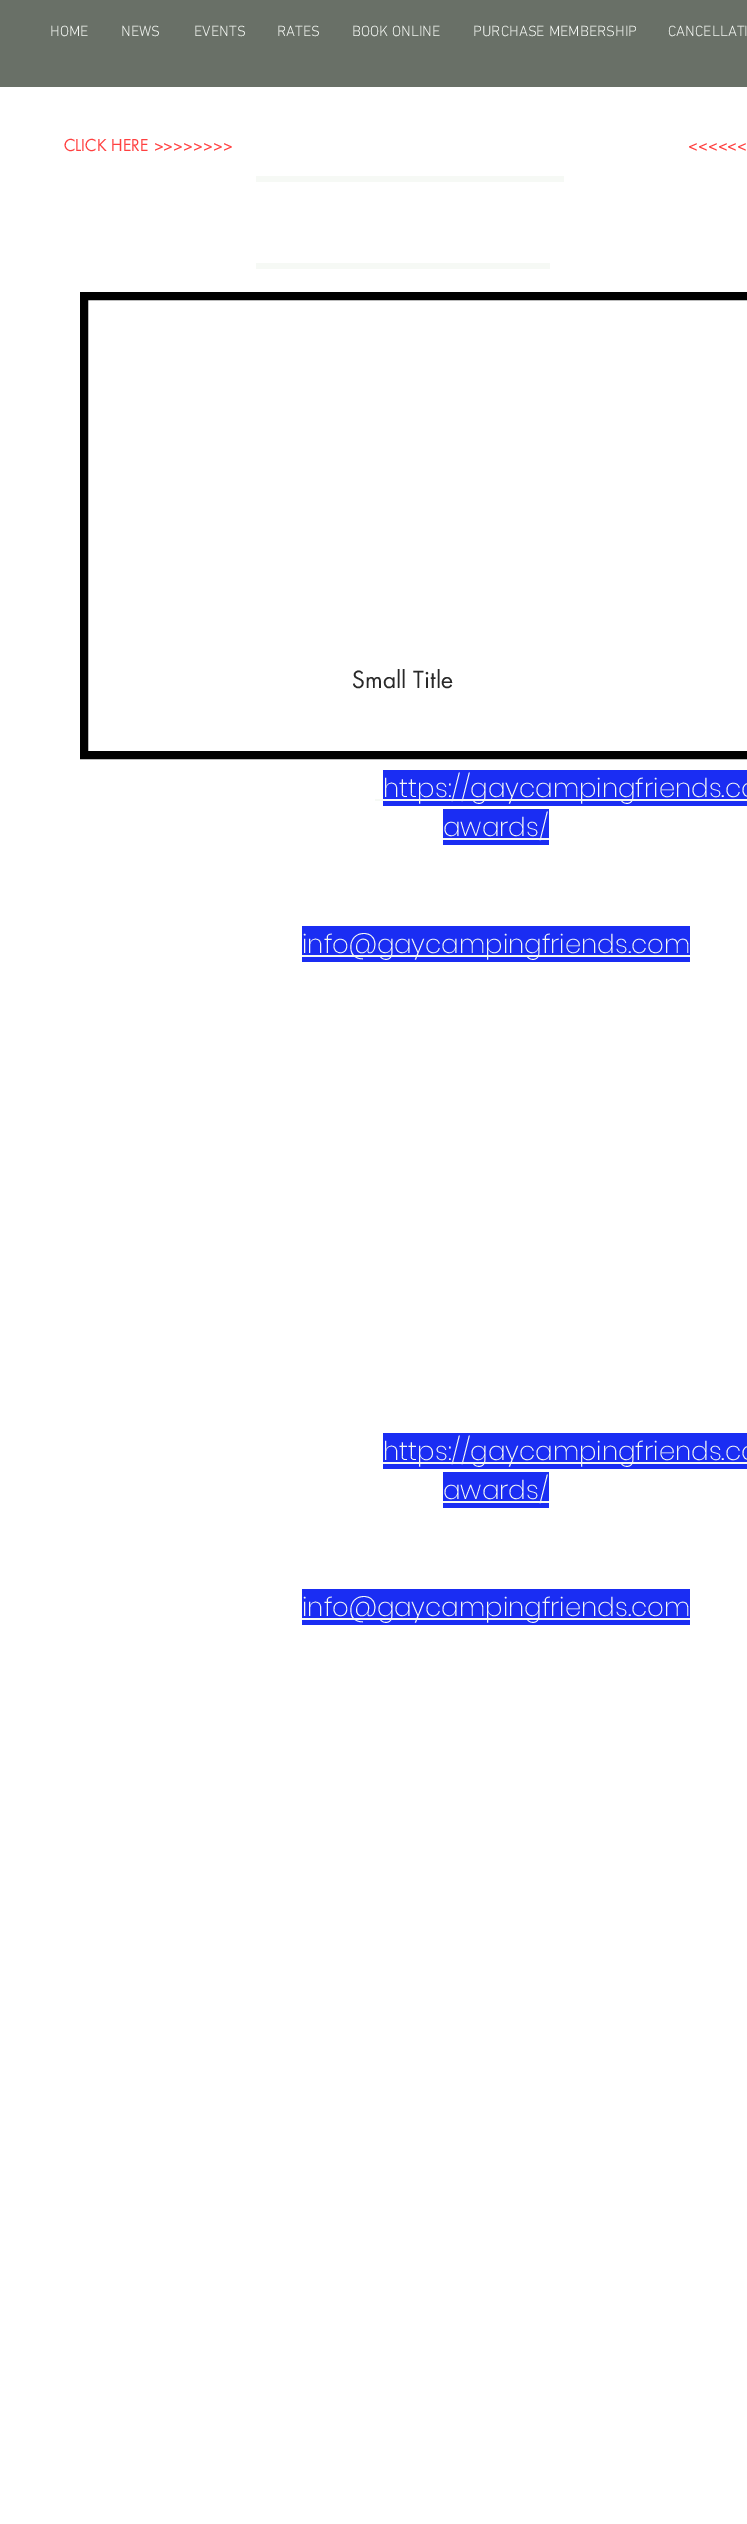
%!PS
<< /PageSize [747 2524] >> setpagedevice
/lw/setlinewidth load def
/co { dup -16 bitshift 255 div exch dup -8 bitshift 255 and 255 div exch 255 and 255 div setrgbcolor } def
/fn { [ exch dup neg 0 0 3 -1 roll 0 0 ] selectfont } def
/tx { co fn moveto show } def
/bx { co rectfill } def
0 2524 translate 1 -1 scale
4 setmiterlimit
0 0 747 2524 16#FFFFFF bx
0 0 747 87 16#697067 bx
256 176 308 6 16#F6F9F5 bx
256 263 294 6 16#F6F9F5 bx
16#000000 co
8 lw
84 296 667 459 rectstroke
375 799 8 2 16#F6F9F5 bx
383 770 364 36 16#1A2DF3 bx
383 799 364 2 16#F6F9F5 bx
443 809 106 36 16#1A2DF3 bx
443 838 106 2 16#F6F9F5 bx
302 926 388 36 16#1A2DF3 bx
302 955 388 2 16#F6F9F5 bx
383 1433 364 36 16#1A2DF3 bx
383 1462 364 2 16#F6F9F5 bx
443 1472 106 36 16#1A2DF3 bx
443 1501 106 2 16#F6F9F5 bx
302 1589 388 36 16#1A2DF3 bx
302 1618 388 2 16#F6F9F5 bx
(HOME) 50 36 /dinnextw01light-Light 15 16#F6F9F5 tx
(NEWS) 121 36 /dinnextw01light-Light 15 16#F6F9F5 tx
(EVENTS) 194 36 /dinnextw01light-Light 15 16#F6F9F5 tx
(RATES) 277 36 /dinnextw01light-Light 15 16#F6F9F5 tx
(BOOK ONLINE) 352 36 /dinnextw01light-Light 15 16#F6F9F5 tx
(PURCHASE MEMBERSHIP) 473 36 /dinnextw01light-Light 15 16#F6F9F5 tx
(CANCELLATI) 668 36 /dinnextw01light-Light 15 16#F6F9F5 tx
(CLICK HERE >>>>>>>>) 64 151 /futura-Regular 16 16#FF4040 tx
(<<<<<<) 688 151 /futura-Regular 16 16#FF4040 tx
(Small Title) 352 688 /futura-Regular 23 16#292929 tx
(https://gaycampingfriends.co) 383 797 /Poppins-ExtraLight 26 16#F6F9F5 tx
(awards/) 443 836 /Poppins-ExtraLight 26 16#F6F9F5 tx
(info@gaycampingfriends.com) 302 953 /Poppins-ExtraLight 26 16#F6F9F5 tx
(https://gaycampingfriends.co) 383 1460 /Poppins-ExtraLight 26 16#F6F9F5 tx
(awards/) 443 1499 /Poppins-ExtraLight 26 16#F6F9F5 tx
(info@gaycampingfriends.com) 302 1616 /Poppins-ExtraLight 26 16#F6F9F5 tx
showpage
